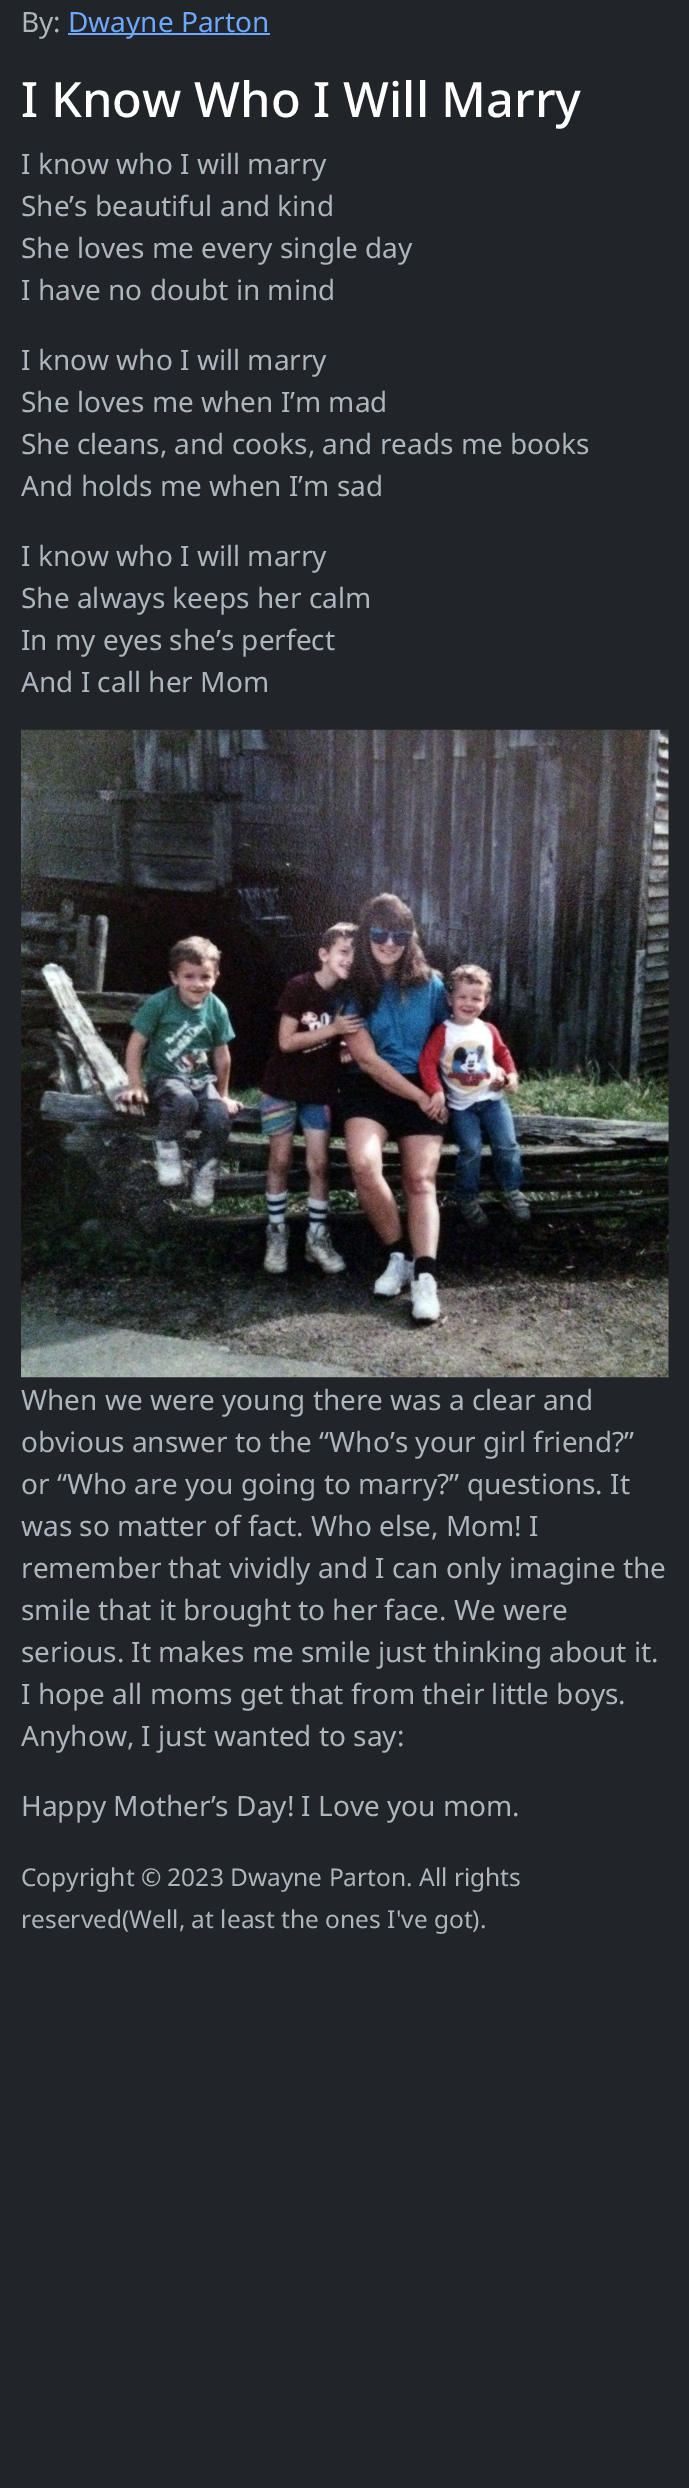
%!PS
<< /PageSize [689 2488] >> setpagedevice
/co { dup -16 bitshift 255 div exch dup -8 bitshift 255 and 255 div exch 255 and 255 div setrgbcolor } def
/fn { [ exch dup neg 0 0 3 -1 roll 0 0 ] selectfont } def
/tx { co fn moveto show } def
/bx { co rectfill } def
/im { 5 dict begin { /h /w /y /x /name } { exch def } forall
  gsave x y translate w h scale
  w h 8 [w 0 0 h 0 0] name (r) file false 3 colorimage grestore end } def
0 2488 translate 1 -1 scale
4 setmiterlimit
0 0 689 2488 16#212529 bx
68 33 202 2 16#6EA8FE bx
(media/1.raw) 21 729 648 649 im
(By:) 21 32 /NotoSans-Regular 28 16#ADB5BD tx
(Dwayne Parton) 68 32 /NotoSans-Regular 28 16#6EA8FE tx
(I Know Who I Will Marry) 21 117 /NotoSans-Medium 48.8 16#FFFFFF tx
(I know who I will marry) 21 174 /NotoSans-Regular 28 16#ADB5BD tx
(She’s beautiful and kind) 21 216 /NotoSans-Regular 28 16#ADB5BD tx
(She loves me every single day) 21 258 /NotoSans-Regular 28 16#ADB5BD tx
(I have no doubt in mind) 21 300 /NotoSans-Regular 28 16#ADB5BD tx
(I know who I will marry) 21 370 /NotoSans-Regular 28 16#ADB5BD tx
(She loves me when I’m mad) 21 412 /NotoSans-Regular 28 16#ADB5BD tx
(She cleans, and cooks, and reads me books) 21 454 /NotoSans-Regular 28 16#ADB5BD tx
(And holds me when I’m sad) 21 496 /NotoSans-Regular 28 16#ADB5BD tx
(I know who I will marry) 21 566 /NotoSans-Regular 28 16#ADB5BD tx
(She always keeps her calm) 21 608 /NotoSans-Regular 28 16#ADB5BD tx
(In my eyes she’s perfect) 21 650 /NotoSans-Regular 28 16#ADB5BD tx
(And I call her Mom) 21 692 /NotoSans-Regular 28 16#ADB5BD tx
(When we were young there was a clear and) 21 1410 /NotoSans-Regular 28 16#ADB5BD tx
(obvious answer to the “Who’s your girl friend?”) 21 1452 /NotoSans-Regular 28 16#ADB5BD tx
(or “Who are you going to marry?” questions. It) 21 1494 /NotoSans-Regular 28 16#ADB5BD tx
(was so matter of fact. Who else, Mom! I) 21 1536 /NotoSans-Regular 28 16#ADB5BD tx
(remember that vividly and I can only imagine the) 21 1578 /NotoSans-Regular 28 16#ADB5BD tx
(smile that it brought to her face. We were) 21 1620 /NotoSans-Regular 28 16#ADB5BD tx
(serious. It makes me smile just thinking about it.) 21 1662 /NotoSans-Regular 28 16#ADB5BD tx
(I hope all moms get that from their little boys.) 21 1704 /NotoSans-Regular 28 16#ADB5BD tx
(Anyhow, I just wanted to say:) 21 1746 /NotoSans-Regular 28 16#ADB5BD tx
(Happy Mother’s Day! I Love you mom.) 21 1816 /NotoSans-Regular 28 16#ADB5BD tx
(Copyright © 2023 Dwayne Parton. All rights) 21 1886 /NotoSans-Regular 24.5 16#ADB5BD tx
(reserved\(Well, at least the ones I've got\).) 21 1928 /NotoSans-Regular 24.5 16#ADB5BD tx
showpage
